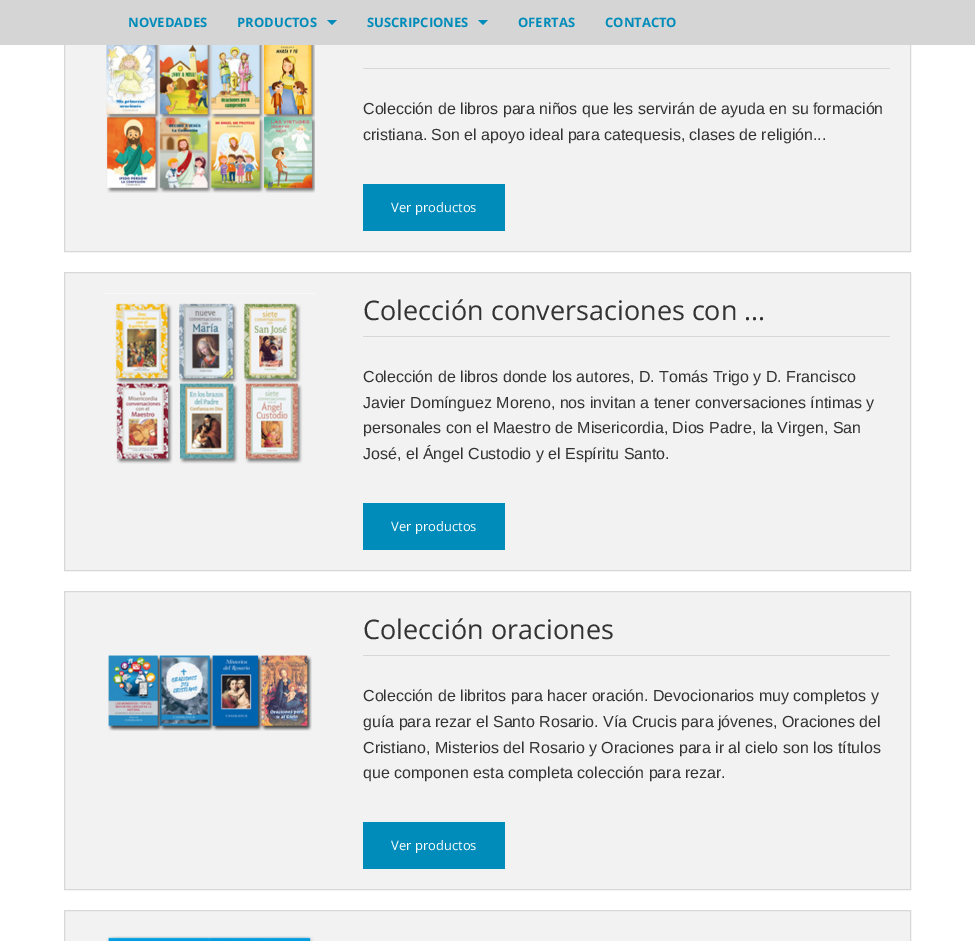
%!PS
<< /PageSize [975 941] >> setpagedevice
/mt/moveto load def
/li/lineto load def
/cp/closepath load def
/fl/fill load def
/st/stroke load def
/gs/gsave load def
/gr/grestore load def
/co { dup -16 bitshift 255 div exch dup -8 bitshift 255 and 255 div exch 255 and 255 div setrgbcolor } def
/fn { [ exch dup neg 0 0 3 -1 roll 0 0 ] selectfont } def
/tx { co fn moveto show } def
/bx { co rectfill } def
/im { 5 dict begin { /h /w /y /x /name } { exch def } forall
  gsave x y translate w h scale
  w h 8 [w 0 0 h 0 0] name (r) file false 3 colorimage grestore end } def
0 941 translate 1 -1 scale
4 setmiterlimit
0 0 975 941 16#FFFFFF bx
65 45 845 206 16#F2F2F2 bx
16#D8D8D8 co
64.5 4.5 846 247 rectstroke
0 0 975 45 16#D5D5D5 bx
16#008CBA co
327 20 mt 337 20 li 332 25 li cp fl
478 20 mt 488 20 li 483 25 li cp fl
(media/1.raw) 106 45 209 148 im
363 68 527 1 16#D8D8D8 bx
363 184 142 47 16#008CBA bx
16#F2F2F2 co
64.5 272.5 mt 910.5 272.5 li 910.5 570.5 li 64.5 570.5 li cp gs fl gr
16#D8D8D8 co
st
(media/2.raw) 103 293 212 171 im
363 336 527 1 16#D8D8D8 bx
363 503 142 47 16#008CBA bx
16#F2F2F2 co
64.5 591.5 mt 910.5 591.5 li 910.5 889.5 li 64.5 889.5 li cp gs fl gr
16#D8D8D8 co
st
(media/3.raw) 108 655 204 76 im
363 655 527 1 16#D8D8D8 bx
363 822 142 47 16#008CBA bx
16#F2F2F2 co
64.5 910.5 mt 910.5 910.5 li 910.5 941.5 li 64.5 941.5 li cp gs fl gr
16#D8D8D8 co
st
(media/4.raw) 106 936 208 5 im
(NOVEDADES) 128 27 /OpenSans-Bold 13 16#008CBA tx
(PRODUCTOS) 237 27 /OpenSans-Bold 13 16#008CBA tx
(SUSCRIPCIONES) 367 27 /OpenSans-Bold 13 16#008CBA tx
(OFERTAS) 518 27 /OpenSans-Bold 13 16#008CBA tx
(CONTACTO) 605 27 /OpenSans-Bold 13 16#008CBA tx
(Colección de libros para niños que les servirán de ayuda en su formación) 363 114 /LiberationSans-Regular 16 16#333333 tx
(cristiana. Son el apoyo ideal para catequesis, clases de religión...) 363 140 /LiberationSans-Regular 16 16#333333 tx
(Ver productos) 391 212 /OpenSans-Regular 13 16#FFFFFF tx
(Colección conversaciones con ...) 363 320 /OpenSans-Regular 27 16#333333 tx
(Colección de libros donde los autores, D. Tomás Trigo y D. Francisco) 363 382 /LiberationSans-Regular 16 16#333333 tx
(Javier Domínguez Moreno, nos invitan a tener conversaciones íntimas y) 363 408 /LiberationSans-Regular 16 16#333333 tx
(personales con el Maestro de Misericordia, Dios Padre, la Virgen, San) 363 433 /LiberationSans-Regular 16 16#333333 tx
(José, el Ángel Custodio y el Espíritu Santo.) 363 459 /LiberationSans-Regular 16 16#333333 tx
(Ver productos) 391 531 /OpenSans-Regular 13 16#FFFFFF tx
(Colección oraciones) 363 639 /OpenSans-Regular 27 16#333333 tx
(Colección de libritos para hacer oración. Devocionarios muy completos y) 363 701 /LiberationSans-Regular 16 16#333333 tx
(guía para rezar el Santo Rosario. Vía Crucis para jóvenes, Oraciones del) 363 727 /LiberationSans-Regular 16 16#333333 tx
(Cristiano, Misterios del Rosario y Oraciones para ir al cielo son los títulos) 363 753 /LiberationSans-Regular 16 16#333333 tx
(que componen esta completa colección para rezar.) 363 778 /LiberationSans-Regular 16 16#333333 tx
(Ver productos) 391 850 /OpenSans-Regular 13 16#FFFFFF tx
showpage
